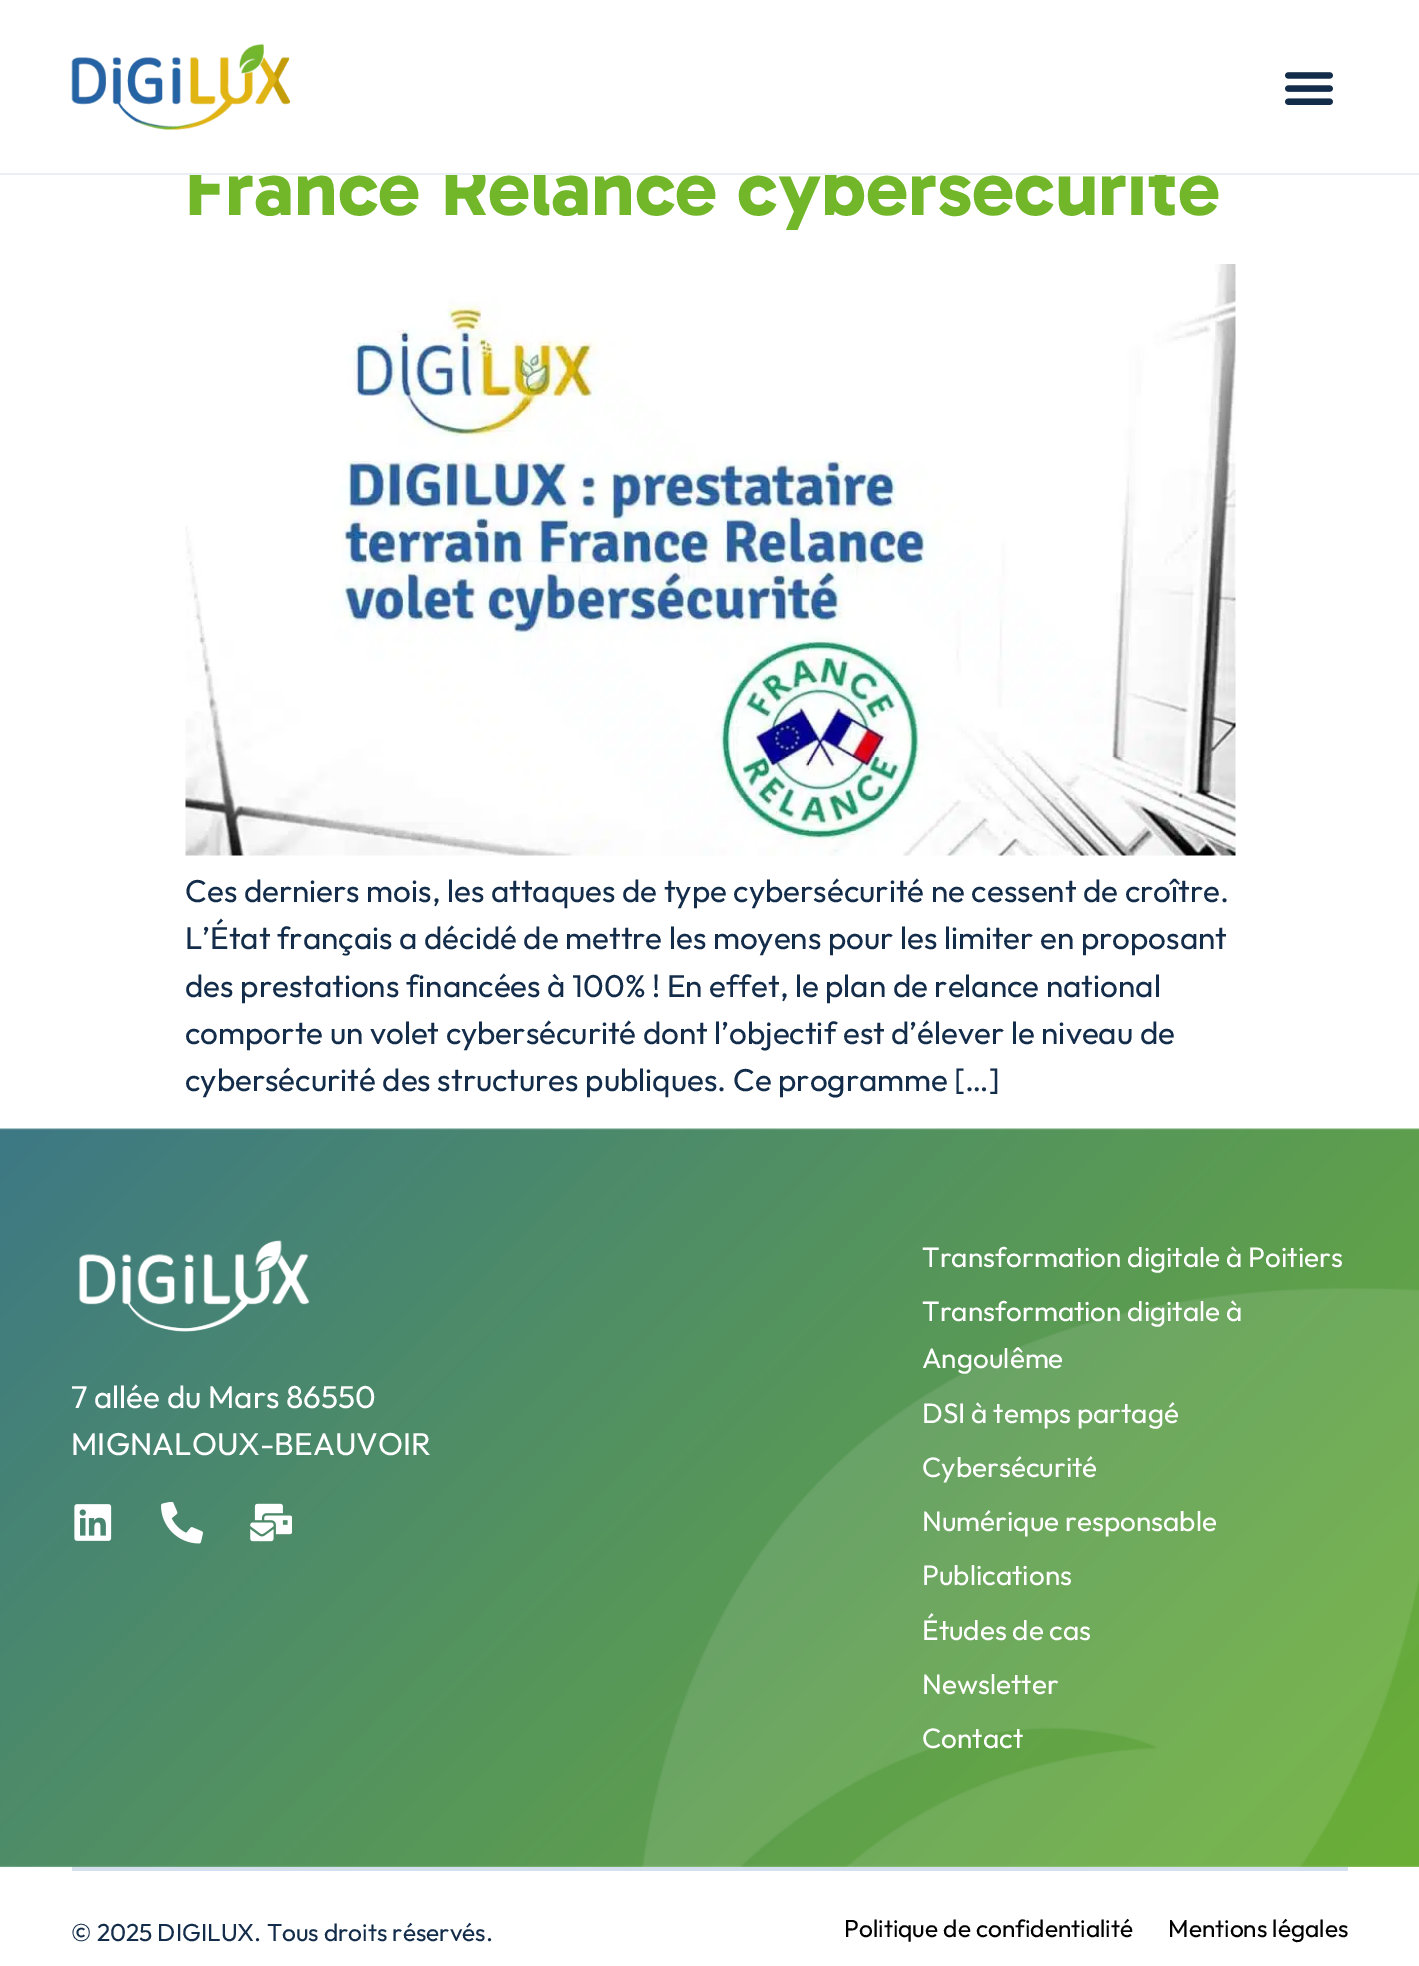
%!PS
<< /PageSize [1419 1966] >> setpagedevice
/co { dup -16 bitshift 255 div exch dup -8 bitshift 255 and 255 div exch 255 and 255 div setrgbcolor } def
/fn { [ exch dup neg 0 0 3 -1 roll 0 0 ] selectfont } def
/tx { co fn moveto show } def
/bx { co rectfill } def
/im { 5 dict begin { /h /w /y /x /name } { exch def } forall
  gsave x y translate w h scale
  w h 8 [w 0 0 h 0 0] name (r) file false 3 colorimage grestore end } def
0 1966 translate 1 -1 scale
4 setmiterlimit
0 0 1419 1966 16#FFFFFF bx
(media/1.raw) 71 43 219 87 im
(media/2.raw) 1285 72 48 33 im
(media/3.raw) 185 264 1051 592 im
(media/4.raw) 0 1128 1419 739 im
(media/5.raw) 79 1240 231 92 im
(media/6.raw) 74 1504 38 37 im
(media/7.raw) 161 1502 42 42 im
(media/8.raw) 250 1503 42 39 im
72 1867 1276 4 16#D4E0ED bx
(France Relance cybersécurité) 185 215 /Gabarito-Bold 78.75 16#72B72A tx
0 173 1419 2 16#EAEFF6 bx
189 154 1023 19 16#FFFFFF bx
(Ces derniers mois, les attaques de type cybersécurité ne cessent de croître.) 185 902 /Outfit-Regular 31.5 16#132C4A tx
(L’État français a décidé de mettre les moyens pour les limiter en proposant) 185 949 /Outfit-Regular 31.5 16#132C4A tx
(des prestations financées à 100% ! En effet, le plan de relance national) 185 997 /Outfit-Regular 31.5 16#132C4A tx
(comporte un volet cybersécurité dont l’objectif est d’élever le niveau de) 185 1044 /Outfit-Regular 31.5 16#132C4A tx
(cybersécurité des structures publiques. Ce programme […]) 185 1091 /Outfit-Regular 31.5 16#132C4A tx
(7 allée du Mars 86550) 71 1408 /Outfit-Regular 31.5 16#FFFFFF tx
(MIGNALOUX-BEAUVOIR) 71 1455 /Outfit-Regular 31.5 16#FFFFFF tx
(Transformation digitale à Poitiers) 922 1267 /Outfit-Regular 28 16#FFFFFF tx
(Transformation digitale à) 922 1321 /Outfit-Regular 28 16#FFFFFF tx
(Angoulême) 922 1368 /Outfit-Regular 28 16#FFFFFF tx
(DSI à temps partagé) 922 1423 /Outfit-Regular 28 16#FFFFFF tx
(Cybersécurité) 922 1477 /Outfit-Regular 28 16#FFFFFF tx
(Numérique responsable) 922 1531 /Outfit-Regular 28 16#FFFFFF tx
(Publications) 922 1585 /Outfit-Regular 28 16#FFFFFF tx
(Études de cas) 922 1640 /Outfit-Regular 28 16#FFFFFF tx
(Newsletter) 922 1694 /Outfit-Regular 28 16#FFFFFF tx
(Contact) 922 1748 /Outfit-Regular 28 16#FFFFFF tx
(© 2025 DIGILUX. Tous droits réservés.) 71 1941 /Outfit-Regular 24.5 16#132C4A tx
(Politique de confidentialité) 844 1937 /Outfit-Regular 24.5 16#000000 tx
(Mentions légales) 1168 1937 /Outfit-Regular 24.5 16#000000 tx
showpage
